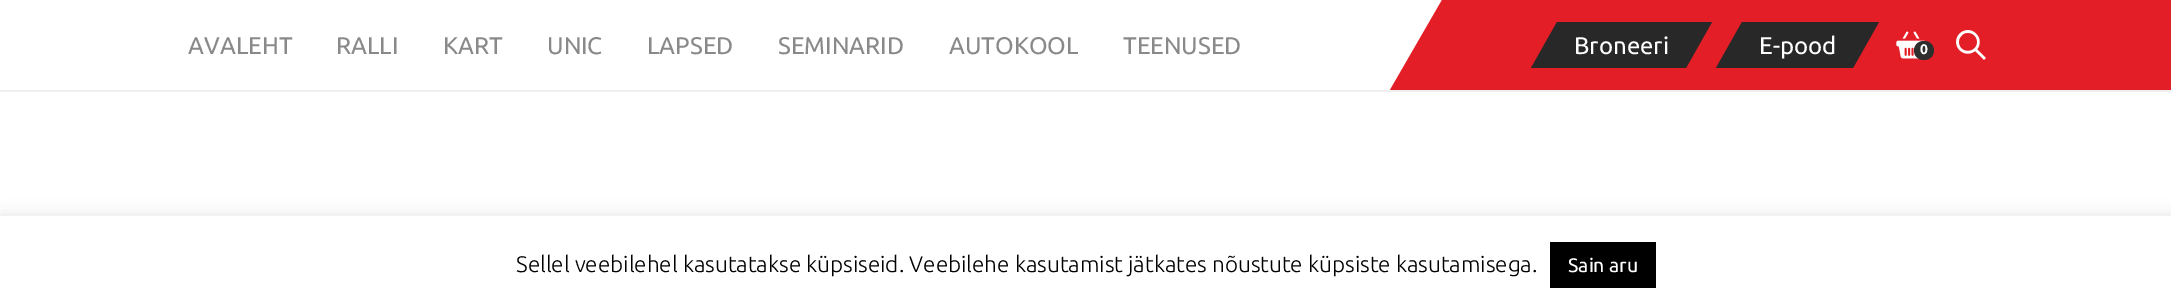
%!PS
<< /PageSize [2171 306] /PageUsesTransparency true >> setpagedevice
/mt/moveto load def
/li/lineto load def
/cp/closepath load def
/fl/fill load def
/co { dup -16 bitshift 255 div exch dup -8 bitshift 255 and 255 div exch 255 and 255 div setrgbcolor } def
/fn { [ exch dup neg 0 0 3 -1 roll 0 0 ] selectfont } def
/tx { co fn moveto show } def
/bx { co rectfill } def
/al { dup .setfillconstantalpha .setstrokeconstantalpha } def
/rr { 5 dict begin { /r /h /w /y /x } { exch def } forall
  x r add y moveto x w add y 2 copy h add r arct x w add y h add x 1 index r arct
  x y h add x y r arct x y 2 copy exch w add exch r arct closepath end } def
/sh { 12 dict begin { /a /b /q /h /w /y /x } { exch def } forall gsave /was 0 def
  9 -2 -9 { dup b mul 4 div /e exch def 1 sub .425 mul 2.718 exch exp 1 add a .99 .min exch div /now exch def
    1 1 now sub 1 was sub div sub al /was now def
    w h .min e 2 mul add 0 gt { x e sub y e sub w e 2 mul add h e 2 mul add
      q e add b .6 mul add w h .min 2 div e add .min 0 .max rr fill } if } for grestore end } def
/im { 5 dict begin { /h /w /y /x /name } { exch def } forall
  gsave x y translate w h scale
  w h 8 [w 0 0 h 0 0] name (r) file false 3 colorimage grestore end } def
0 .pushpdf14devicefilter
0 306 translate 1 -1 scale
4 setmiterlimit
0 0 2171 306 16#FFFFFF bx
0 90 2171 2 16#EFEFEF bx
16#E41E26 co
1442 0 mt 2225 0 li 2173 90 li 1390 90 li cp fl
16#282828 co
1557 22 mt 1712 22 li 1686 68 li 1531 68 li cp fl
1742 22 mt 1879 22 li 1853 68 li 1716 68 li cp fl
(media/1.raw) 1896 31 30 28 im
16#2F2E2E co
1914 41 20 19 9.5 rr fl
(media/2.raw) 1956 30 30 30 im
16#ACABAB co
0 215 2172 90 0 7.5 .3 sh
0 216 2171 90 16#FFFFFF bx
1550 242 106 46 16#000000 bx
(AVALEHT) 188 54 /Ubuntu-Regular 24 16#898989 tx
(RALLI) 336 54 /Ubuntu-Regular 24 16#898989 tx
(KART) 443 54 /Ubuntu-Regular 24 16#898989 tx
(UNIC) 547 54 /Ubuntu-Regular 24 16#898989 tx
(LAPSED) 647 54 /Ubuntu-Regular 24 16#898989 tx
(SEMINARID) 778 54 /Ubuntu-Regular 24 16#898989 tx
(AUTOKOOL) 949 54 /Ubuntu-Regular 24 16#898989 tx
(TEENUSED) 1123 54 /Ubuntu-Regular 24 16#898989 tx
(Broneeri) 1574 54 /Ubuntu-Regular 24 16#FFFFFF tx
(E-pood) 1759 54 /Ubuntu-Regular 24 16#FFFFFF tx
(0) 1920 54 /Ubuntu-Bold 14 16#FFFFFF tx
(Sellel veebilehel kasutatakse küpsiseid. Veebilehe kasutamist jätkates nõustute küpsiste kasutamisega.) 516 272 /Ubuntu-Light 22.5 16#000000 tx
(Sain aru) 1568 272 /Ubuntu-Regular 19.5 16#FFFFFF tx
.poppdf14devicefilter showpage
